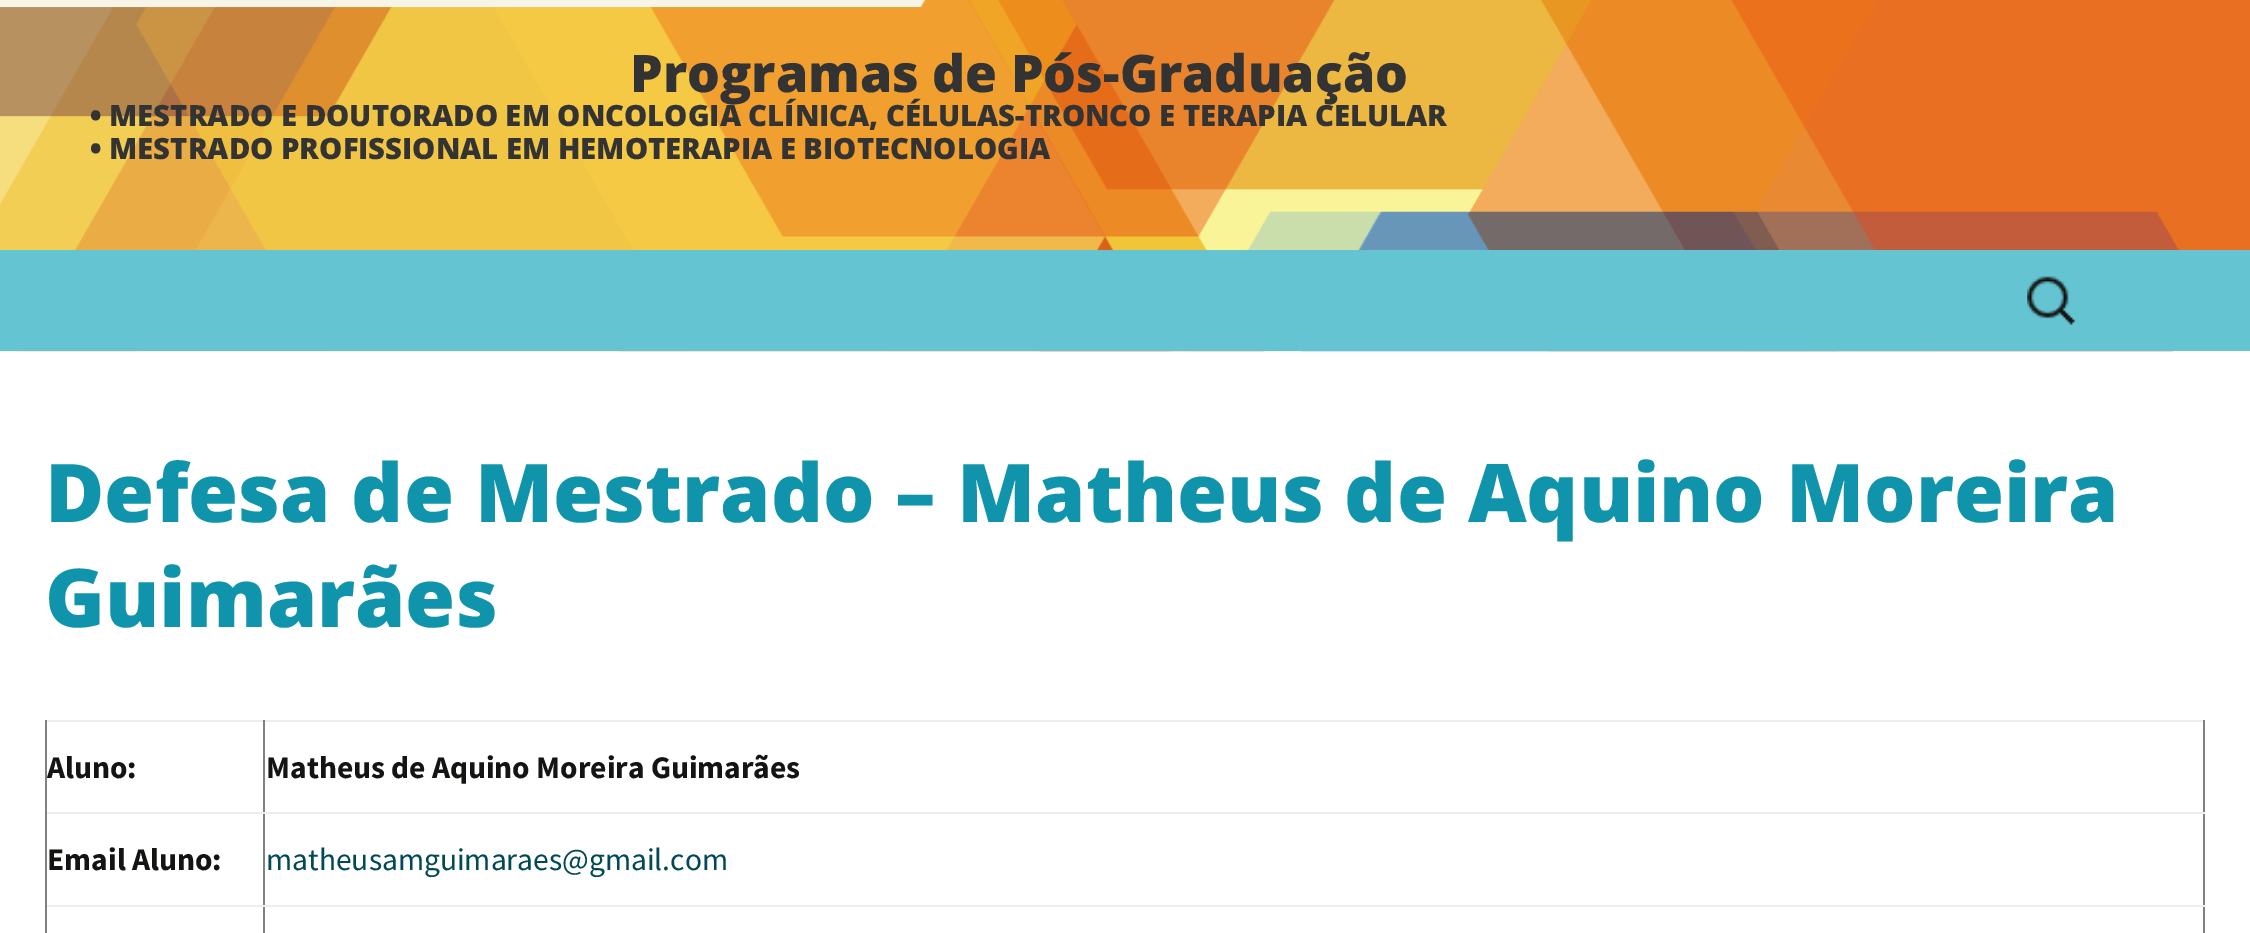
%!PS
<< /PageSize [2250 933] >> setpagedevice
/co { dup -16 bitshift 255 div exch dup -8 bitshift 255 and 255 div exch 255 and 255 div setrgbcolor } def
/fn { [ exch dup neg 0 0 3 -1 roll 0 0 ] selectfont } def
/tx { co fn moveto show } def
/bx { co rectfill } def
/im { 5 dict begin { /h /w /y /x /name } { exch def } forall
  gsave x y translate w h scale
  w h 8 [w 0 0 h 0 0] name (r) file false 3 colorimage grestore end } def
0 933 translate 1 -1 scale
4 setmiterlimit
0 0 2250 933 16#FFFFFF bx
(media/1.raw) 0 0 2250 352 im
0 250 2250 101 16#64C4D2 bx
(media/2.raw) 2027 276 49 49 im
45 720 2160 2 16#EDEDED bx
2203 812 2 121 16#808080 bx
2203 720 2 95 16#808080 bx
263 905 2 28 16#808080 bx
263 905 1942 2 16#EDEDED bx
263 812 2 95 16#808080 bx
263 812 1942 2 16#EDEDED bx
263 720 2 95 16#808080 bx
45 905 2 28 16#808080 bx
45 905 221 2 16#EDEDED bx
45 812 2 95 16#808080 bx
45 812 221 2 16#EDEDED bx
45 720 2 95 16#808080 bx
(Programas de Pós-Graduação) 630 92 /OpenSans-ExtraBold 51.75 16#333333 tx
(• MESTRADO E DOUTORADO EM ONCOLOGIA CLÍNICA, CÉLULAS-TRONCO E TERAPIA CELULAR) 90 126 /OpenSans-ExtraBold 29.25 16#333333 tx
(• MESTRADO PROFISSIONAL EM HEMOTERAPIA E BIOTECNOLOGIA) 90 159 /OpenSans-ExtraBold 29.25 16#333333 tx
(Defesa de Mestrado – Matheus de Aquino Moreira) 45 522 /OpenSans-ExtraBold 81 16#1094AB tx
(Guimarães) 45 627 /OpenSans-ExtraBold 81 16#1094AB tx
(Aluno:) 47 778 /SourceSansPro-Bold 31.5 16#141412 tx
(Matheus de Aquino Moreira Guimarães) 266 778 /SourceSansPro-Bold 31.5 16#141412 tx
(Email Aluno:) 47 870 /SourceSansPro-Bold 31.5 16#141412 tx
(matheusamguimaraes@gmail.com) 266 870 /SourceSansPro-Regular 31.5 16#014955 tx
showpage
